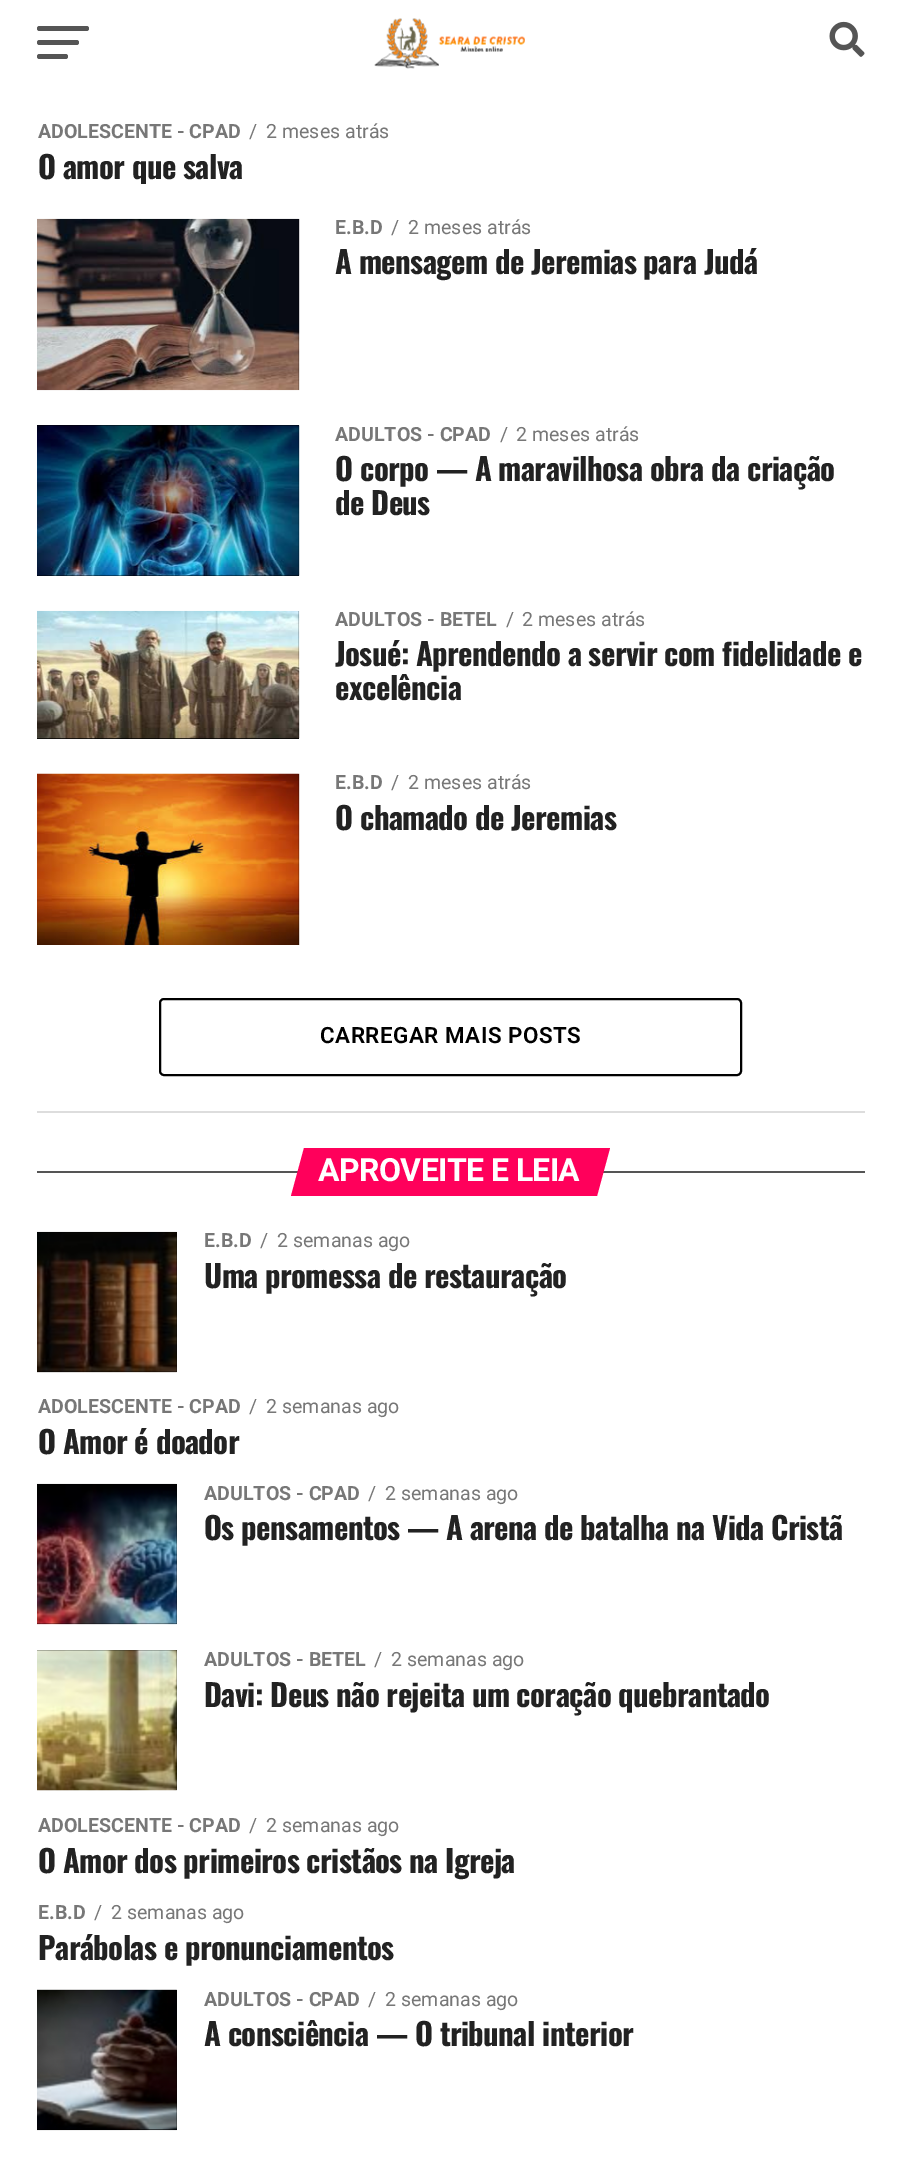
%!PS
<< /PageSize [900 2165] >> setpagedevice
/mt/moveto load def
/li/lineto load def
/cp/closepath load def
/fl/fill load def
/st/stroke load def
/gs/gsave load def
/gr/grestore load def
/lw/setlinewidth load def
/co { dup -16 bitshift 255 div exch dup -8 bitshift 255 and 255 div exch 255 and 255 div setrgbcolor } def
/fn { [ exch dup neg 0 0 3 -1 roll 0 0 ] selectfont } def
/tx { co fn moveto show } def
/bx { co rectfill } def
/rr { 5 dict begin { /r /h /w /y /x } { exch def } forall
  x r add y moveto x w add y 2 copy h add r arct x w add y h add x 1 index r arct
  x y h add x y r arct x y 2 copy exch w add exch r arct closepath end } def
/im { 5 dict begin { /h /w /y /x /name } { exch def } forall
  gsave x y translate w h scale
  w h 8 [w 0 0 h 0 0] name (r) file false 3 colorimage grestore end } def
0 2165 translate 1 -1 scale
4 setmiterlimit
0 0 900 2165 16#FFFFFF bx
16#555555 co
37 26 52 5 2.5 rr fl
37 40 42 5 2.5 rr fl
37 54 31 5 2.5 rr fl
(media/1.raw) 374 18 151 51 im
(media/2.raw) 829 21 36 36 im
(media/3.raw) 37 218 263 173 im
37 425 262 151 16#000000 bx
(media/4.raw) 37 425 263 151 im
37 611 262 128 16#000000 bx
(media/5.raw) 37 610 263 129 im
(media/6.raw) 37 773 263 172 im
2 lw
160 999 581 76 4 rr st
37 1111 828 2 16#DDDDDD bx
37 1171 828 2 16#555555 bx
16#FF005B co
304 1148 mt 610 1148 li 597 1196 li 291 1196 li cp fl
37 1232 140 140 16#000000 bx
(media/7.raw) 37 1231 140 142 im
37 1484 140 140 16#000000 bx
(media/8.raw) 37 1483 140 142 im
37 1650 140 140 16#000000 bx
(media/9.raw) 37 1650 140 141 im
37 1990 140 140 16#000000 bx
(media/10.raw) 37 1989 140 142 im
(ADOLESCENTE - CPAD) 38 138 /Roboto-Bold 19.6 16#777777 tx
(/) 249 138 /Roboto-Regular 19.6 16#777777 tx
(2 meses atrás) 266 138 /Roboto-Regular 19.6 16#777777 tx
gs
37 123 828 61 rectclip
/Oswald-Bold 30.8 fn
16#222222 co
38 179 mt -.6 0 (O amor que salva) ashow
gr
(E.B.D) 335 234 /Roboto-Bold 19.6 16#777777 tx
(/) 391 234 /Roboto-Regular 19.6 16#777777 tx
(2 meses atrás) 408 234 /Roboto-Regular 19.6 16#777777 tx
/Oswald-Bold 30.8 fn
16#222222 co
335 274 mt -.6 0 (A mensagem de Jeremias para Judá) ashow
(ADULTOS - CPAD) 335 441 /Roboto-Bold 19.6 16#777777 tx
(/) 500 441 /Roboto-Regular 19.6 16#777777 tx
(2 meses atrás) 516 441 /Roboto-Regular 19.6 16#777777 tx
/Oswald-Bold 30.8 fn
16#222222 co
335 481 mt -.6 0 (O corpo — A maravilhosa obra da criação) ashow
335 515 mt -.6 0 (de Deus) ashow
(ADULTOS - BETEL) 335 626 /Roboto-Bold 19.6 16#777777 tx
(/) 506 626 /Roboto-Regular 19.6 16#777777 tx
(2 meses atrás) 522 626 /Roboto-Regular 19.6 16#777777 tx
/Oswald-Bold 30.8 fn
16#222222 co
335 666 mt -.6 0 (Josué: Aprendendo a servir com fidelidade e) ashow
335 700 mt -.6 0 (excelência) ashow
(E.B.D) 335 789 /Roboto-Bold 19.6 16#777777 tx
(/) 391 789 /Roboto-Regular 19.6 16#777777 tx
(2 meses atrás) 408 789 /Roboto-Regular 19.6 16#777777 tx
/Oswald-Bold 30.8 fn
16#222222 co
335 830 mt -.6 0 (O chamado de Jeremias) ashow
/Roboto-SemiBold 22.4 fn
16#000000 co
320 1043 mt .5 0 (CARREGAR MAIS POSTS) ashow
/Roboto-Bold 32 fn
16#FFFFFF co
318 1181 mt -.6 0 (APROVEITE E LEIA) ashow
(E.B.D) 204 1247 /Roboto-Bold 19.6 16#777777 tx
(/) 260 1247 /Roboto-Regular 19.6 16#777777 tx
(2 semanas ago) 277 1247 /Roboto-Regular 19.6 16#777777 tx
/Oswald-Bold 30.8 fn
16#222222 co
204 1288 mt -.6 0 (Uma promessa de restauração) ashow
(ADOLESCENTE - CPAD) 38 1413 /Roboto-Bold 19.6 16#777777 tx
(/) 249 1413 /Roboto-Regular 19.6 16#777777 tx
(2 semanas ago) 266 1413 /Roboto-Regular 19.6 16#777777 tx
/Oswald-Bold 30.8 fn
16#222222 co
38 1454 mt -.6 0 (O Amor é doador) ashow
(ADULTOS - CPAD) 204 1500 /Roboto-Bold 19.6 16#777777 tx
(/) 368 1500 /Roboto-Regular 19.6 16#777777 tx
(2 semanas ago) 385 1500 /Roboto-Regular 19.6 16#777777 tx
/Oswald-Bold 30.8 fn
16#222222 co
204 1540 mt -.6 0 (Os pensamentos — A arena de batalha na Vida Cristã) ashow
(ADULTOS - BETEL) 204 1666 /Roboto-Bold 19.6 16#777777 tx
(/) 374 1666 /Roboto-Regular 19.6 16#777777 tx
(2 semanas ago) 391 1666 /Roboto-Regular 19.6 16#777777 tx
/Oswald-Bold 30.8 fn
16#222222 co
204 1707 mt -.6 0 (Davi: Deus não rejeita um coração quebrantado) ashow
(ADOLESCENTE - CPAD) 38 1832 /Roboto-Bold 19.6 16#777777 tx
(/) 249 1832 /Roboto-Regular 19.6 16#777777 tx
(2 semanas ago) 266 1832 /Roboto-Regular 19.6 16#777777 tx
/Oswald-Bold 30.8 fn
16#222222 co
38 1873 mt -.6 0 (O Amor dos primeiros cristãos na Igreja) ashow
(E.B.D) 38 1919 /Roboto-Bold 19.6 16#777777 tx
(/) 94 1919 /Roboto-Regular 19.6 16#777777 tx
(2 semanas ago) 111 1919 /Roboto-Regular 19.6 16#777777 tx
/Oswald-Bold 30.8 fn
16#222222 co
38 1960 mt -.6 0 (Parábolas e pronunciamentos) ashow
(ADULTOS - CPAD) 204 2006 /Roboto-Bold 19.6 16#777777 tx
(/) 368 2006 /Roboto-Regular 19.6 16#777777 tx
(2 semanas ago) 385 2006 /Roboto-Regular 19.6 16#777777 tx
/Oswald-Bold 30.8 fn
16#222222 co
204 2046 mt -.6 0 (A consciência — O tribunal interior) ashow
showpage
